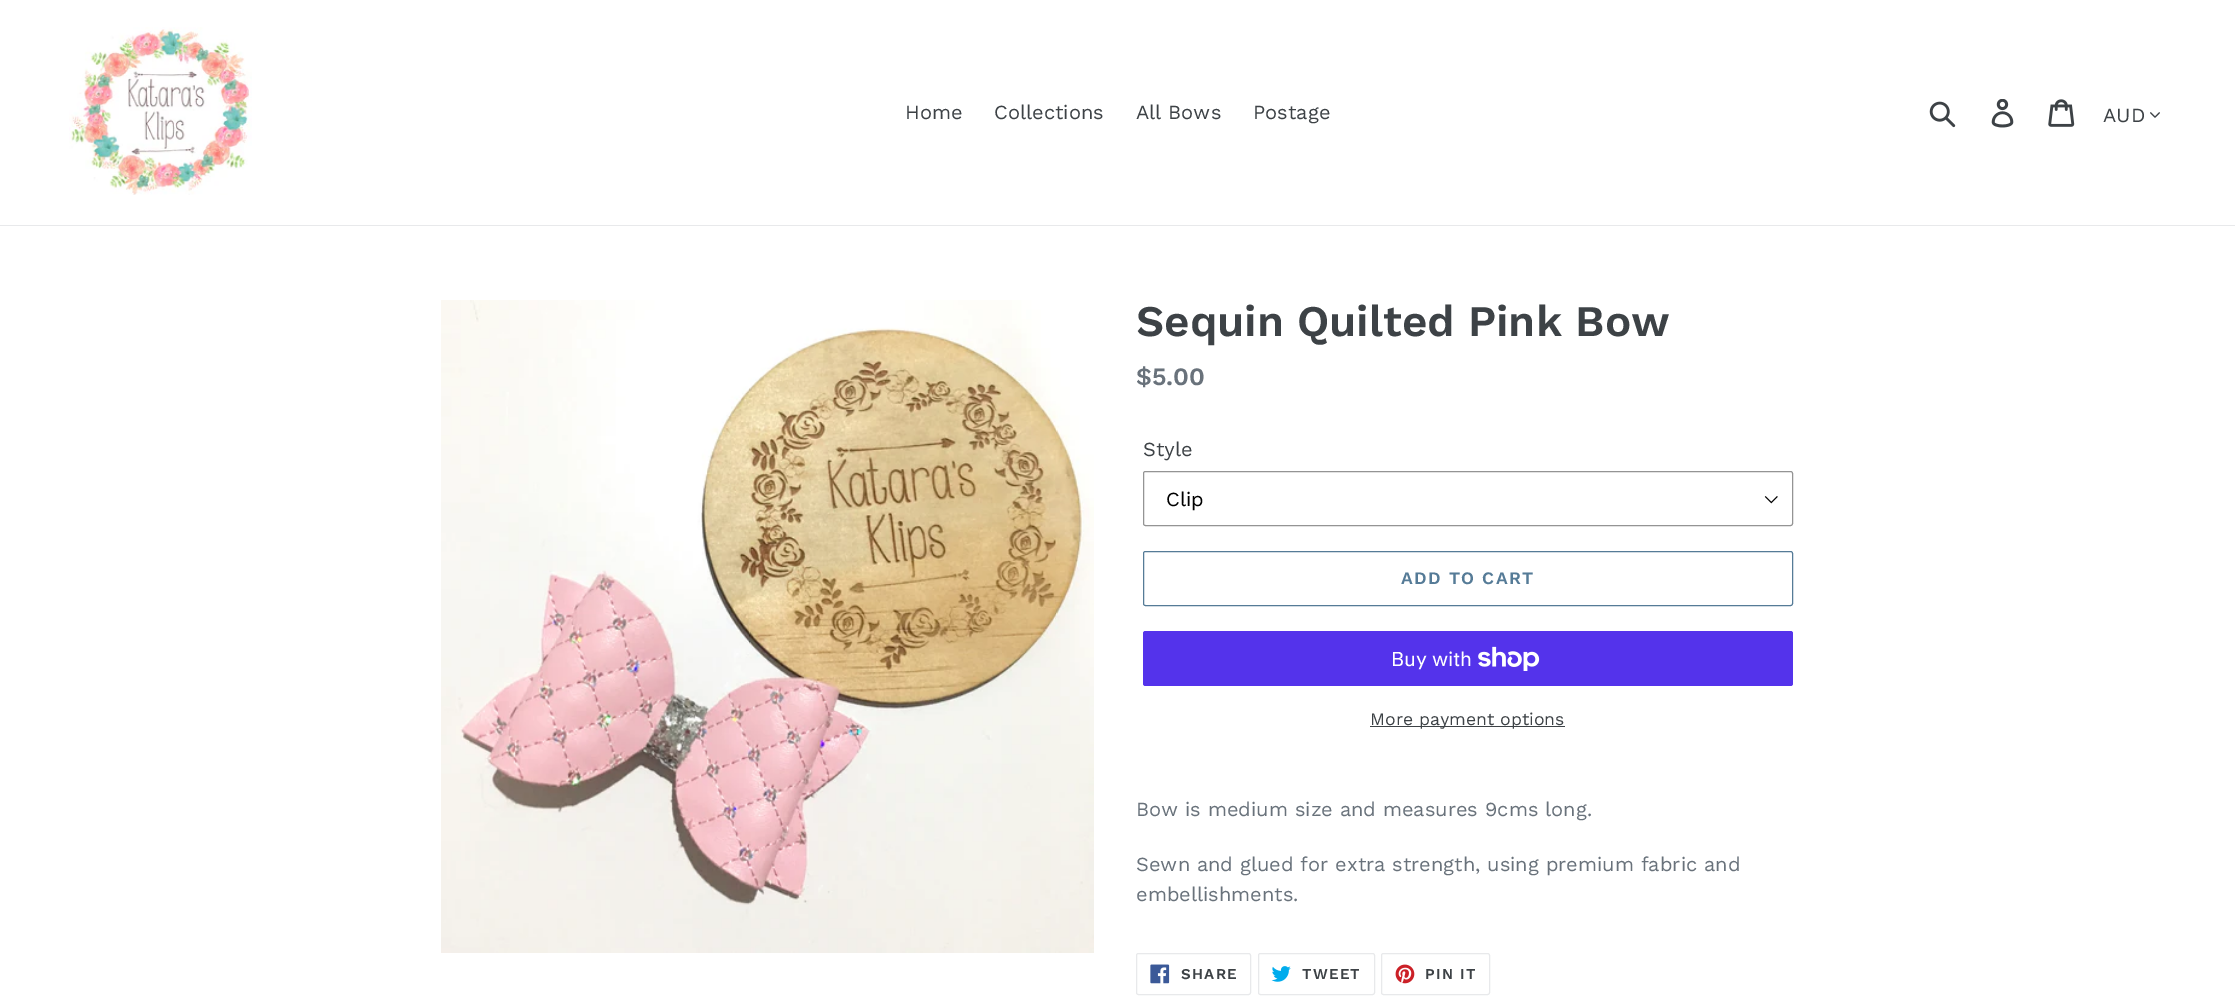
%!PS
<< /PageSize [2235 999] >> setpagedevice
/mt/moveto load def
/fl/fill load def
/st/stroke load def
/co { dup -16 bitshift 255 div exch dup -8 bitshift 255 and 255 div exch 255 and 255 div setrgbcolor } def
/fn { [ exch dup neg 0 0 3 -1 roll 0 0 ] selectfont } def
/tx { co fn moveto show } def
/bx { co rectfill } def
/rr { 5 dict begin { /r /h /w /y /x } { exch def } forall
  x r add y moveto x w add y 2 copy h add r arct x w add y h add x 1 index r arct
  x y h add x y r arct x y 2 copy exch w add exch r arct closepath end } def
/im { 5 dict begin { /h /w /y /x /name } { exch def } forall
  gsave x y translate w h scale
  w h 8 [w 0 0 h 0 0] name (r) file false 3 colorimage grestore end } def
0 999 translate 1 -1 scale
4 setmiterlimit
0 0 2235 999 16#FFFFFF bx
0 225 2235 1 16#E8E9EB bx
(media/1.raw) 69 27 183 168 im
(media/2.raw) 1929 101 27 27 im
(media/3.raw) 1991 99 23 29 im
(media/4.raw) 2048 99 27 28 im
(media/5.raw) 2150 112 10 6 im
(media/6.raw) 441 300 653 653 im
(media/7.raw) 1764 496 14 8 im
16#949494 co
1143.5 471.5 649 54 2 rr st
16#557B97 co
1143.5 551.5 649 54 2 rr st
16#5433EB co
1143 631 650 55 2.5 rr fl
(media/8.raw) 1478 646 62 25 im
1370 726 195 1 16#3D4246 bx
16#E8E9EB co
1136.5 953.5 114 41 2 rr st
(media/9.raw) 1150 964 20 20 im
1258.5 953.5 116 41 2 rr st
(media/10.raw) 1271 966 20 16 im
1381.5 953.5 108 41 2 rr st
(media/11.raw) 1395 964 20 20 im
(Home) 905 119 /WorkSans-Regular 20 16#3D4246 tx
(Collections) 994 119 /WorkSans-Regular 20 16#3D4246 tx
(All Bows) 1136 119 /WorkSans-Regular 20 16#3D4246 tx
(Postage) 1253 119 /WorkSans-Regular 20 16#3D4246 tx
(AUD) 2103 122 /WorkSans-Regular 20 16#3D4246 tx
(Sequin Quilted Pink Bow) 1136 336 /WorkSans-SemiBold 43.75 16#3D4246 tx
($5.00) 1136 385 /WorkSans-SemiBold 25 16#69727B tx
(Style) 1143 456 /WorkSans-Regular 20 16#3D4246 tx
(Clip) 1166 506 /WorkSans-Regular 20 16#000000 tx
/WorkSans-SemiBold 17.5 fn
16#557B97 co
1401 584 mt 1.4 0 (ADD TO CART) ashow
(Buy with) 1391 666 /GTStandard-Regular 20 16#FFFFFF tx
(More payment options) 1370 725 /WorkSans-Regular 17.5 16#3D4246 tx
(Bow is medium size and measures 9cms long.) 1136 816 /WorkSans-Regular 20 16#69727B tx
(Sewn and glued for extra strength, using premium fabric and) 1136 871 /WorkSans-Regular 20 16#69727B tx
(embellishments.) 1136 901 /WorkSans-Regular 20 16#69727B tx
/WorkSans-SemiBold 15 fn
16#3D4246 co
1181 979 mt 1.25 0 (SHARE) ashow
1302 979 mt 1.25 0 (TWEET) ashow
1425 979 mt 1.25 0 (PIN IT) ashow
showpage
